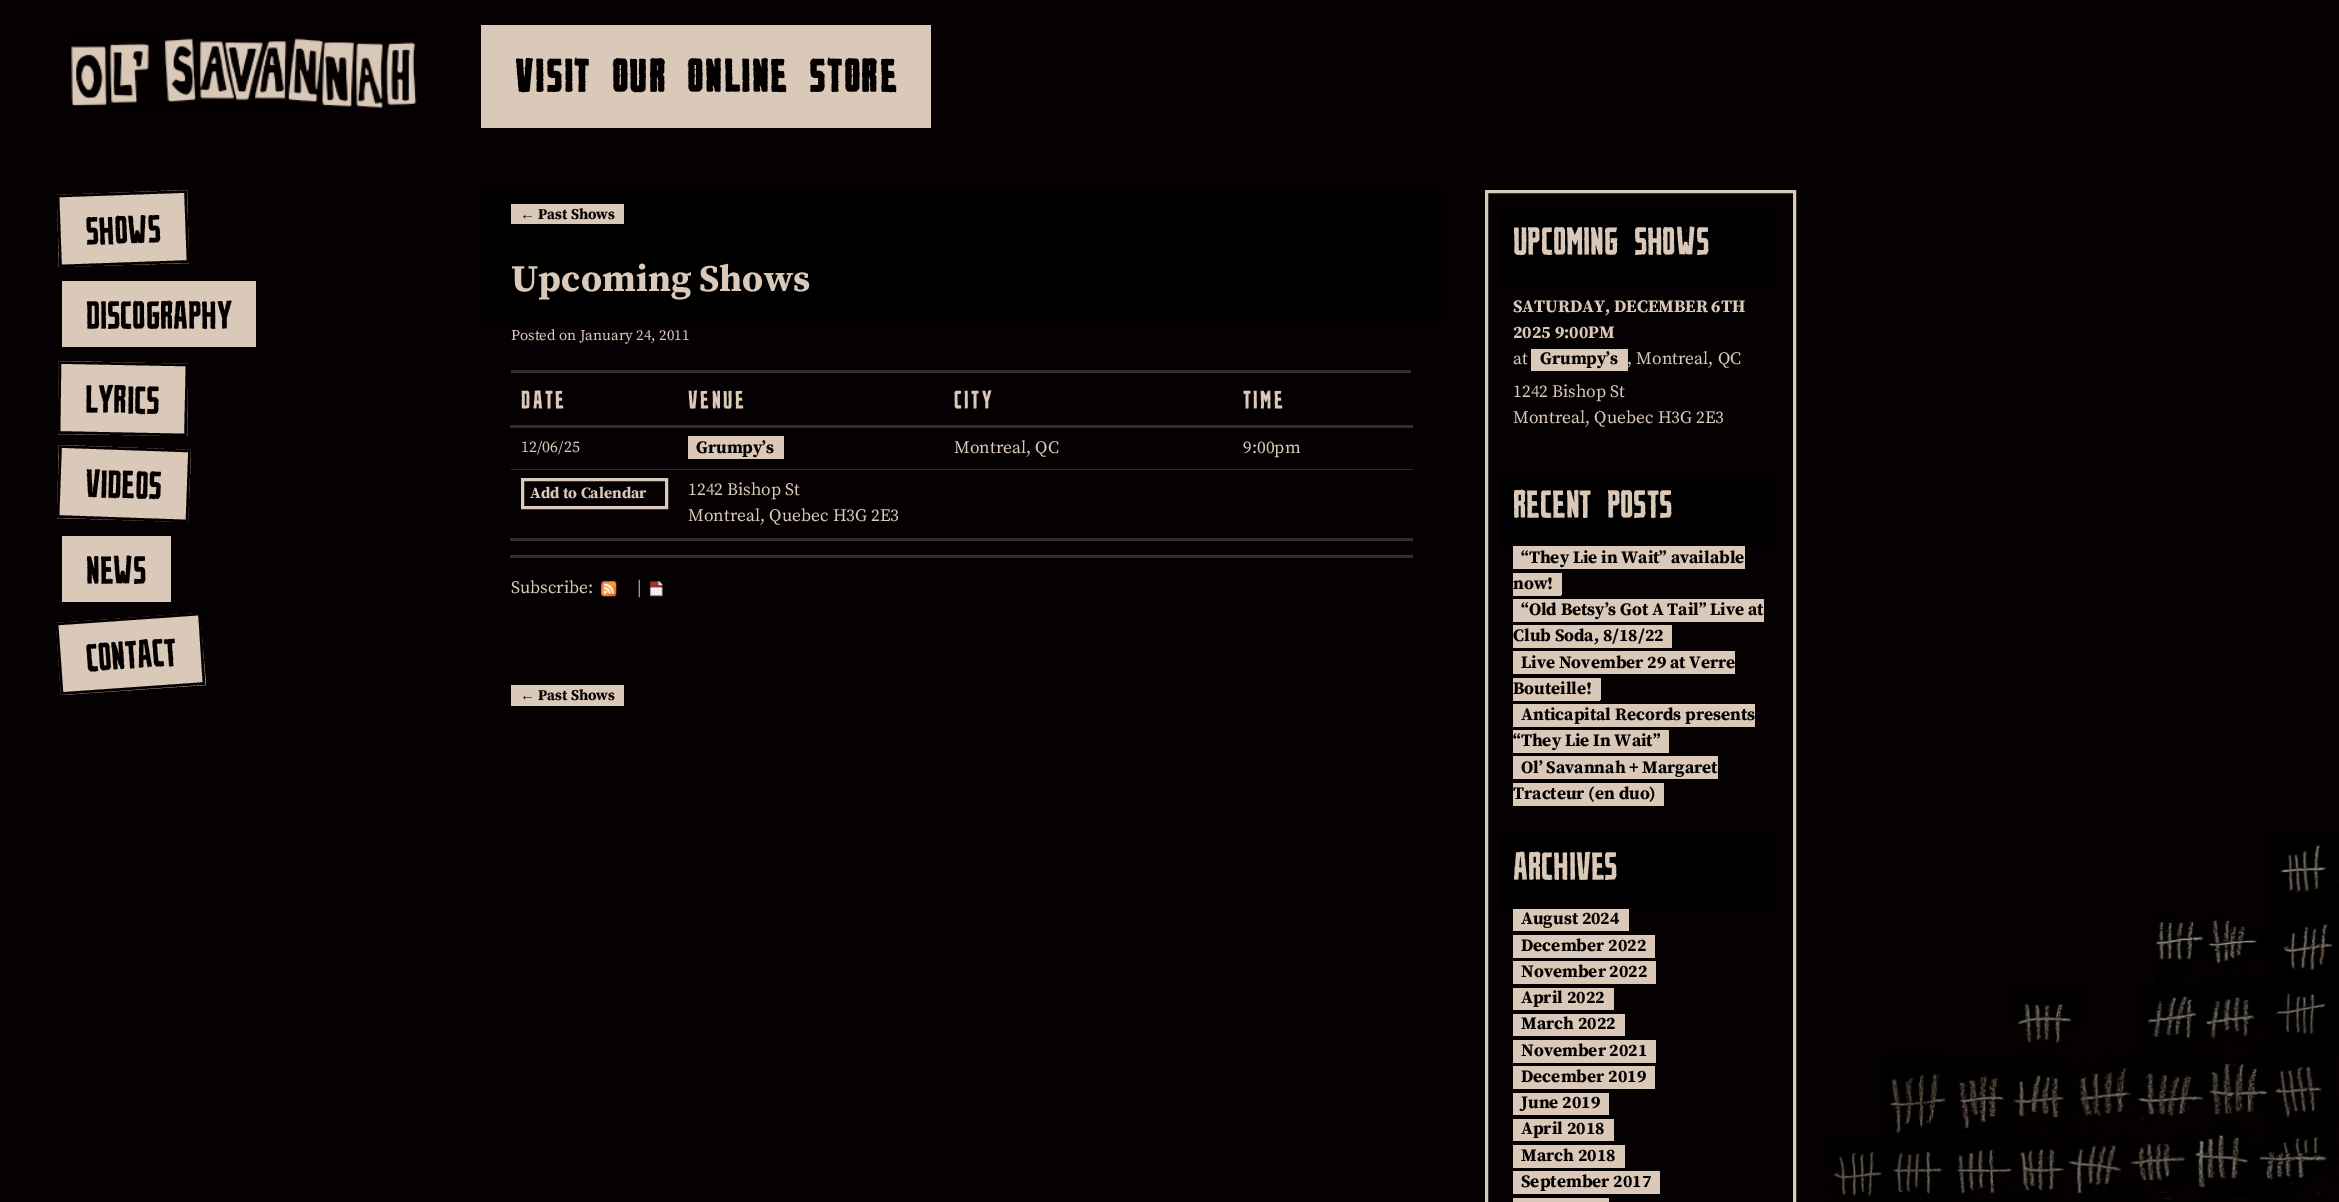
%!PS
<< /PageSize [2339 1202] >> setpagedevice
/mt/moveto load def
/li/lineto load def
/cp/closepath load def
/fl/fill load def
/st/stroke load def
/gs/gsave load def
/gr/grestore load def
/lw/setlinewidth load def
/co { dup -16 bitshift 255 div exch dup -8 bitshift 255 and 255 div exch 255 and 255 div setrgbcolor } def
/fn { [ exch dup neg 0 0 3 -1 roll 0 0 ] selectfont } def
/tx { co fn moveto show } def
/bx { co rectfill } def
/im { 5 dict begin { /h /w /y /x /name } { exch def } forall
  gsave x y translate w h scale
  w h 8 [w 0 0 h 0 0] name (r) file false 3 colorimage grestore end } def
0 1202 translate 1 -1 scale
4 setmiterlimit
0 0 2339 1202 16#050102 bx
(media/1.raw) 1826 838 513 364 im
(media/2.raw) 71 38 346 70 im
16#DAC8B8 co
57 195 mt 187 190 li 189 263 li 59 267 li cp fl
16#040000 co
2.5 lw
58 196 mt 185.5 191.5 li 188 261.5 li 60.5 266 li cp st
62 281 194 66 16#DAC8B8 bx
59 361 mt 188 364 li 187 436 li 58 434 li cp fl
16#040000 co
60 362.5 mt 187 365 li 185.5 435 li 59 432.5 li cp st
16#DAC8B8 co
59 445 mt 191 450 li 188 522 li 57 518 li cp fl
16#040000 co
60.5 446.5 mt 189.5 451 li 187 521 li 58 516.5 li cp st
62 536 109 66 16#DAC8B8 bx
56 623 mt 200 613 li 206 685 li 61 695 li cp fl
16#040000 co
57 624 mt 199.5 614 li 204 683.5 li 62 693.5 li cp st
481 25 450 103 16#DAC8B8 bx
481 190 960 134 16#000000 bx
511 204 113 20 16#DAC8B8 bx
511 370 900 3 16#2E2E2E bx
510 425 903 3 16#2E2E2E bx
688 436 96 23 16#DAC8B8 bx
511 469 902 1 16#2E2E2E bx
16#DAC8B8 co
3 lw
522.5 479.5 144 28 rectstroke
510 538 903 3 16#2E2E2E bx
510 555 903 3 16#2E2E2E bx
(media/3.raw) 601 581 16 16 im
(media/4.raw) 649 581 14 16 im
511 685 24 21 16#DAC8B8 bx
535 685 89 21 16#DAC8B8 bx
1486.5 191.5 308 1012 rectstroke
1500 211 275 72 16#000000 bx
1531 349 97 22 16#DAC8B8 bx
1500 475 275 70 16#000000 bx
1513 546 232 23 16#DAC8B8 bx
1513 573 46 20 16#DAC8B8 bx
1559 573 3 22 16#DAC8B8 bx
1513 593 48 3 16#DAC8B8 bx
1513 599 251 23 16#DAC8B8 bx
1513 625 159 23 16#DAC8B8 bx
1513 651 222 23 16#DAC8B8 bx
1513 678 85 20 16#DAC8B8 bx
1598 678 3 22 16#DAC8B8 bx
1513 698 87 3 16#DAC8B8 bx
1513 704 242 23 16#DAC8B8 bx
1513 730 156 23 16#DAC8B8 bx
1513 756 205 23 16#DAC8B8 bx
1513 783 151 23 16#DAC8B8 bx
1500 836 275 72 16#000000 bx
1513 909 116 22 16#DAC8B8 bx
1513 935 142 23 16#DAC8B8 bx
1513 961 143 23 16#DAC8B8 bx
1513 988 101 22 16#DAC8B8 bx
1513 1014 112 22 16#DAC8B8 bx
1513 1040 143 23 16#DAC8B8 bx
1513 1066 142 23 16#DAC8B8 bx
1513 1093 96 22 16#DAC8B8 bx
1513 1119 101 22 16#DAC8B8 bx
1513 1145 112 23 16#DAC8B8 bx
1513 1171 147 23 16#DAC8B8 bx
1513 1198 96 4 16#DAC8B8 bx
/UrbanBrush-Regular 38.75 fn
16#040000 co
gs 86 244 translate -2 rotate 0 0 mt (SHOWS) show gr
(DISCOGRAPHY) 86 328 /UrbanBrush-Regular 38.75 16#040000 tx
gs 85 412 translate 1 rotate 0 0 mt (LYRICS) show gr
gs 85 496 translate 2 rotate 0 0 mt (VIDEOS) show gr
(NEWS) 86 583 /UrbanBrush-Regular 38.75 16#040000 tx
gs 87 671 translate -4 rotate 0 0 mt (CONTACT) show gr
/UrbanBrush-Bold 45 fn
515 91 mt 2.5 0 (VISIT OUR ONLINE STORE) ashow
(←) 520 219 /LiberationSerif-Bold 15 16#040000 tx
(Past Shows) 538 219 /SourceSerifPro-Bold 15 16#040000 tx
(Upcoming Shows) 511 291 /SourceSerifPro-Bold 37.5 16#DAC8B8 tx
(Posted on January 24, 2011) 511 340 /SourceSerifPro-Regular 15 16#DAC8B8 tx
/UrbanBrush-Regular 25 fn
521 408 mt 2.5 0 (DATE) ashow
688 408 mt 2.5 0 (VENUE) ashow
954 408 mt 2.5 0 (CITY) ashow
1243 408 mt 2.5 0 (TIME) ashow
(12/06/25) 521 452 /SourceSerifPro-Regular 16 16#DAC8B8 tx
(Grumpy’s) 696 453 /SourceSerifPro-Bold 17.5 16#040000 tx
(Montreal, QC) 954 453 /SourceSerifPro-Regular 17.5 16#DAC8B8 tx
(9:00pm) 1243 453 /SourceSerifPro-Regular 17.5 16#DAC8B8 tx
(Add to Calendar) 530 498 /SourceSerifPro-Bold 15.75 16#DAC8B8 tx
(1242 Bishop St) 688 495 /SourceSerifPro-Regular 17.5 16#DAC8B8 tx
(Montreal, Quebec H3G 2E3) 688 521 /SourceSerifPro-Regular 17.5 16#DAC8B8 tx
(Subscribe:) 511 593 /SourceSerifPro-Regular 17.5 16#DAC8B8 tx
(|) 637 593 /SourceSerifPro-Regular 17.5 16#DAC8B8 tx
(←) 520 700 /LiberationSerif-Bold 15 16#040000 tx
(Past Shows) 538 700 /SourceSerifPro-Bold 15 16#040000 tx
(UPCOMING SHOWS) 1513 254 /UrbanBrush-Regular 38.75 16#DAC8B8 tx
(SATURDAY, DECEMBER 6TH) 1513 312 /SourceSerifPro-Bold 17.5 16#DAC8B8 tx
(2025 9:00PM) 1513 338 /SourceSerifPro-Bold 17.5 16#DAC8B8 tx
(at) 1513 364 /SourceSerifPro-Regular 17.5 16#DAC8B8 tx
(Grumpy’s) 1540 364 /SourceSerifPro-Bold 17.5 16#040000 tx
(, Montreal, QC) 1627 364 /SourceSerifPro-Regular 17.5 16#DAC8B8 tx
(1242 Bishop St) 1513 397 /SourceSerifPro-Regular 17.5 16#DAC8B8 tx
(Montreal, Quebec H3G 2E3) 1513 423 /SourceSerifPro-Regular 17.5 16#DAC8B8 tx
(RECENT POSTS) 1513 517 /UrbanBrush-Regular 38.75 16#DAC8B8 tx
(“They Lie in Wait” available) 1521 563 /SourceSerifPro-Bold 17.5 16#040000 tx
(now!) 1513 589 /SourceSerifPro-Bold 17.5 16#040000 tx
(“Old Betsy’s Got A Tail” Live at) 1521 615 /SourceSerifPro-Bold 17.5 16#040000 tx
(Club Soda, 8/18/22) 1513 641 /SourceSerifPro-Bold 17.5 16#040000 tx
(Live November 29 at Verre) 1521 668 /SourceSerifPro-Bold 17.5 16#040000 tx
(Bouteille!) 1513 694 /SourceSerifPro-Bold 17.5 16#040000 tx
(Anticapital Records presents) 1521 720 /SourceSerifPro-Bold 17.5 16#040000 tx
(“They Lie In Wait”) 1513 746 /SourceSerifPro-Bold 17.5 16#040000 tx
(Ol’ Savannah + Margaret) 1521 773 /SourceSerifPro-Bold 17.5 16#040000 tx
(Tracteur \(en duo\)) 1513 799 /SourceSerifPro-Bold 17.5 16#040000 tx
(ARCHIVES) 1513 879 /UrbanBrush-Regular 38.75 16#DAC8B8 tx
(August 2024) 1521 924 /SourceSerifPro-Bold 17.5 16#040000 tx
(December 2022) 1521 951 /SourceSerifPro-Bold 17.5 16#040000 tx
(November 2022) 1521 977 /SourceSerifPro-Bold 17.5 16#040000 tx
(April 2022) 1521 1003 /SourceSerifPro-Bold 17.5 16#040000 tx
(March 2022) 1521 1029 /SourceSerifPro-Bold 17.5 16#040000 tx
(November 2021) 1521 1056 /SourceSerifPro-Bold 17.5 16#040000 tx
(December 2019) 1521 1082 /SourceSerifPro-Bold 17.5 16#040000 tx
(June 2019) 1521 1108 /SourceSerifPro-Bold 17.5 16#040000 tx
(April 2018) 1521 1134 /SourceSerifPro-Bold 17.5 16#040000 tx
(March 2018) 1521 1161 /SourceSerifPro-Bold 17.5 16#040000 tx
(September 2017) 1521 1187 /SourceSerifPro-Bold 17.5 16#040000 tx
showpage
